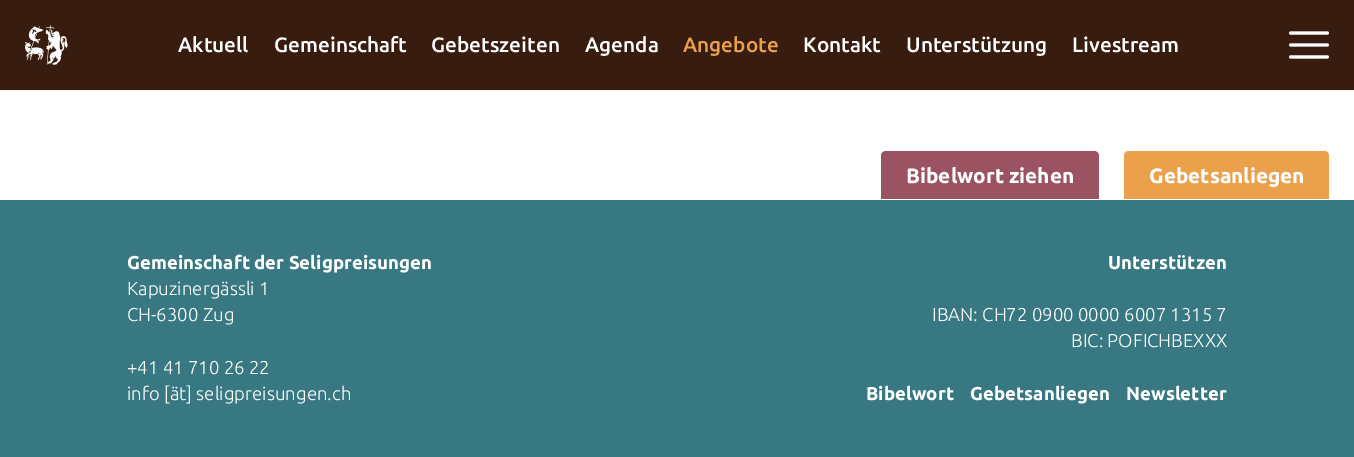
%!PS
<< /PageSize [1354 457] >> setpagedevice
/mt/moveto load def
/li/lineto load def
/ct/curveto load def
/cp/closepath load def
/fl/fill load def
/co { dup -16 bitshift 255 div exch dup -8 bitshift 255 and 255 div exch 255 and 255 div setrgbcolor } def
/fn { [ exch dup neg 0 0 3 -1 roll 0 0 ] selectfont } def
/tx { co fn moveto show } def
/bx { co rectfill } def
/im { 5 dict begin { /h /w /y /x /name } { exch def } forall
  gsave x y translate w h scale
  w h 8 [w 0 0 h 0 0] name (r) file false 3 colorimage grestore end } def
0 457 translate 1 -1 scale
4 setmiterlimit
0 0 1354 457 16#FFFFFF bx
0 0 1354 90 16#381C0F bx
(media/1.raw) 25 25 43 40 im
(media/2.raw) 1289 31 40 28 im
16#9C5361 co
886 151 mt 1094 151 li 1097 151 1099 153 1099 156 ct 1099 199 li 881 199 li 881 156 li 881 153 883 151 886 151 ct cp fl
16#EBA14B co
1129 151 mt 1324 151 li 1327 151 1329 153 1329 156 ct 1329 199 li 1124 199 li 1124 156 li 1124 153 1126 151 1129 151 ct cp fl
0 200 1354 257 16#377882 bx
(Aktuell) 178 52 /Ubuntu-Medium 20.75 16#FFFFFF tx
(Gemeinschaft) 274 52 /Ubuntu-Medium 20.75 16#FFFFFF tx
(Gebetszeiten) 431 52 /Ubuntu-Medium 20.75 16#FFFFFF tx
(Agenda) 585 52 /Ubuntu-Medium 20.75 16#FFFFFF tx
(Angebote) 683 52 /Ubuntu-Medium 20.75 16#EBA14B tx
(Kontakt) 803 52 /Ubuntu-Medium 20.75 16#FFFFFF tx
(Unterstützung) 906 52 /Ubuntu-Medium 20.75 16#FFFFFF tx
(Livestream) 1072 52 /Ubuntu-Medium 20.75 16#FFFFFF tx
(Bibelwort ziehen) 906 183 /Ubuntu-Bold 20.75 16#FFFFFF tx
(Gebetsanliegen) 1149 183 /Ubuntu-Bold 20.75 16#FFFFFF tx
(Gemeinschaft der Seligpreisungen) 127 269 /Ubuntu-Bold 18.6 16#FFFFFF tx
(Kapuzinergässli 1) 127 295 /Ubuntu-Light 18.6 16#FFFFFF tx
(CH-6300 Zug) 127 321 /Ubuntu-Light 18.6 16#FFFFFF tx
(+41 41 710 26 22) 127 374 /Ubuntu-Light 18.6 16#FFFFFF tx
(info [ät] seligpreisungen.ch) 127 400 /Ubuntu-Light 18.6 16#FFFFFF tx
(Unterstützen) 1108 269 /Ubuntu-Bold 18.6 16#FFFFFF tx
(IBAN: CH72 0900 0000 6007 1315 7) 932 321 /Ubuntu-Light 18.6 16#FFFFFF tx
(BIC: POFICHBEXXX) 1071 347 /Ubuntu-Light 18.6 16#FFFFFF tx
(Bibelwort) 866 400 /Ubuntu-Bold 18.6 16#FFFFFF tx
(Gebetsanliegen) 970 400 /Ubuntu-Bold 18.6 16#FFFFFF tx
(Newsletter) 1126 400 /Ubuntu-Bold 18.6 16#FFFFFF tx
showpage
